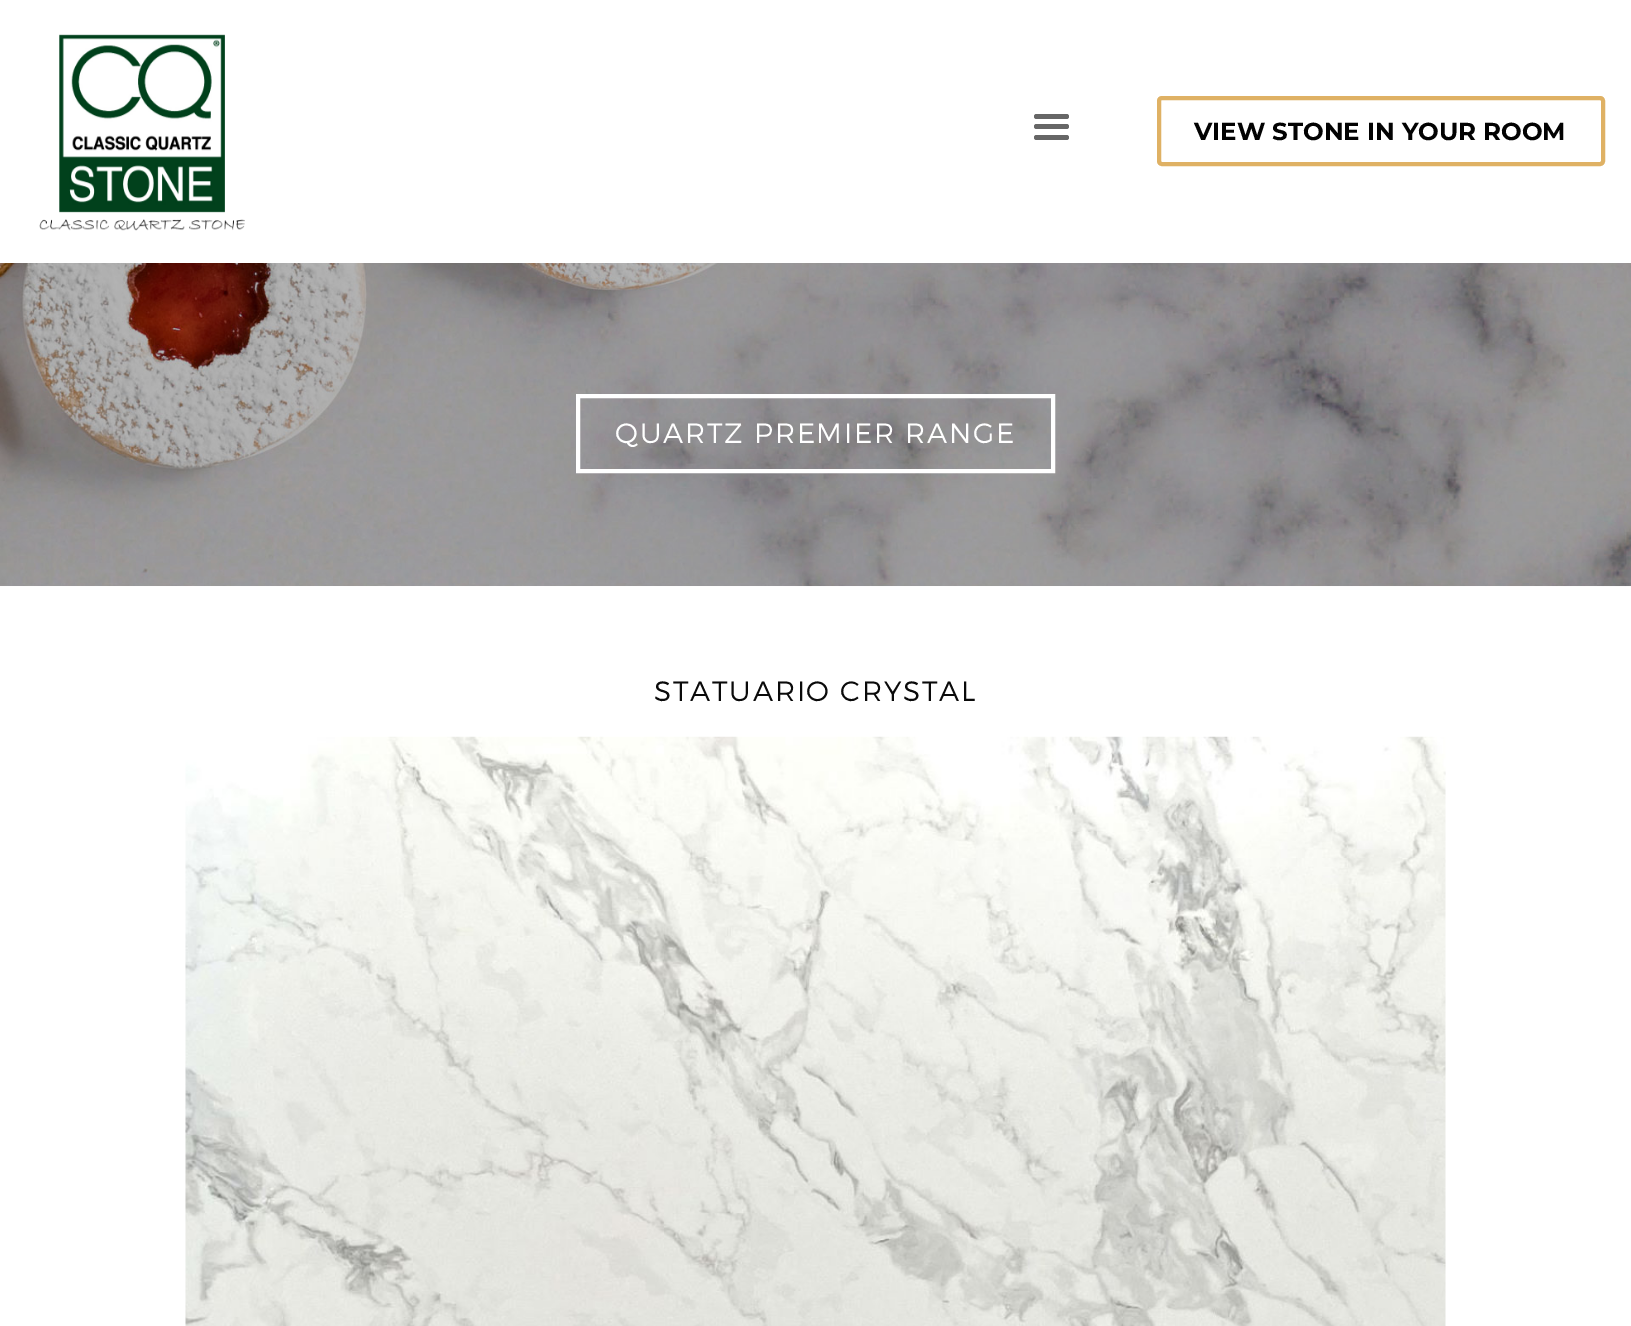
%!PS
<< /PageSize [1631 1326] >> setpagedevice
/mt/moveto load def
/fl/fill load def
/st/stroke load def
/lw/setlinewidth load def
/co { dup -16 bitshift 255 div exch dup -8 bitshift 255 and 255 div exch 255 and 255 div setrgbcolor } def
/fn { [ exch dup neg 0 0 3 -1 roll 0 0 ] selectfont } def
/tx { co fn moveto show } def
/bx { co rectfill } def
/rr { 5 dict begin { /r /h /w /y /x } { exch def } forall
  x r add y moveto x w add y 2 copy h add r arct x w add y h add x 1 index r arct
  x y h add x y r arct x y 2 copy exch w add exch r arct closepath end } def
/im { 5 dict begin { /h /w /y /x /name } { exch def } forall
  gsave x y translate w h scale
  w h 8 [w 0 0 h 0 0] name (r) file false 3 colorimage grestore end } def
0 1326 translate 1 -1 scale
4 setmiterlimit
0 0 1631 1326 16#FFFFFF bx
(media/1.raw) 39 34 206 197 im
16#666666 co
1034 114 35 5 2.5 rr fl
1034 124 35 5 2.5 rr fl
1034 135 35 5 2.5 rr fl
16#DFB164 co
4 lw
1159 98 444 66 3 rr st
(media/2.raw) 0 263 1631 324 im
16#FFFFFF co
578 396 475 75 rectstroke
(media/3.raw) 185 736 1261 590 im
(VIEW STONE IN YOUR ROOM) 1194 140 /Montserrat-Thin 24.5 16#020202 tx
/Montserrat-Light 28 fn
16#FFFFFF co
615 443 mt 1.75 0 (QUARTZ PREMIER RANGE) ashow
16#0A0A0A co
654 701 mt 1.75 0 (STATUARIO CRYSTAL) ashow
showpage
